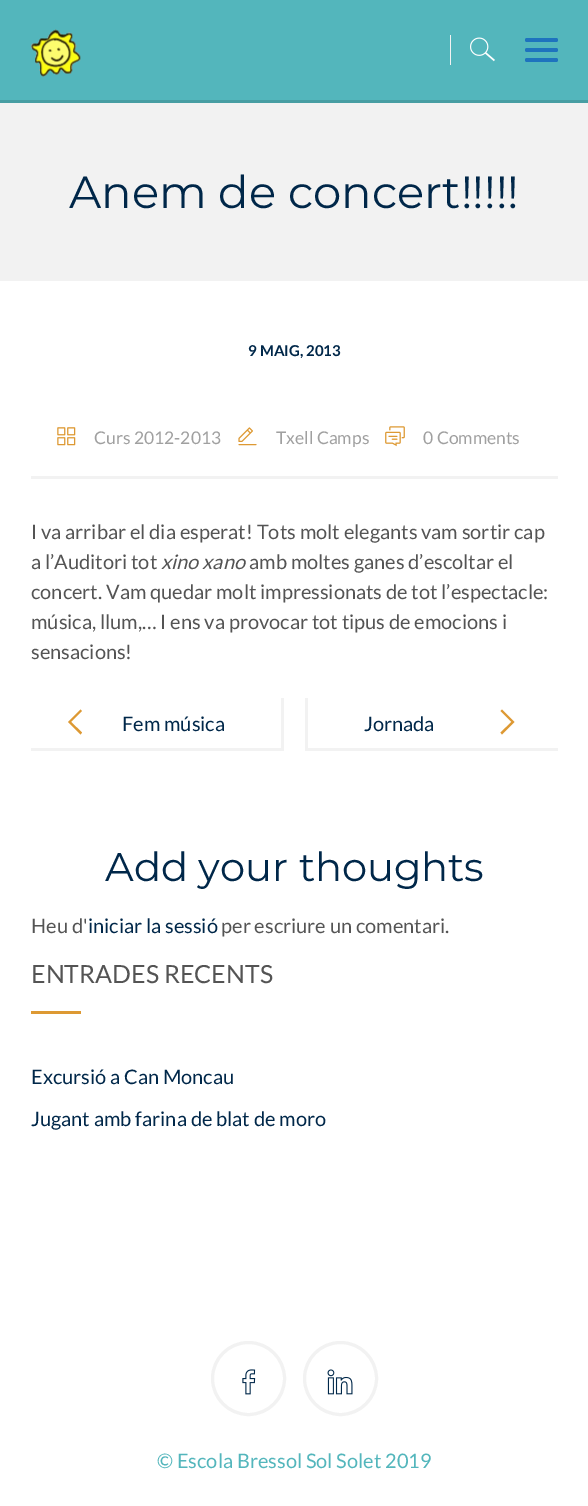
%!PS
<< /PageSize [588 1506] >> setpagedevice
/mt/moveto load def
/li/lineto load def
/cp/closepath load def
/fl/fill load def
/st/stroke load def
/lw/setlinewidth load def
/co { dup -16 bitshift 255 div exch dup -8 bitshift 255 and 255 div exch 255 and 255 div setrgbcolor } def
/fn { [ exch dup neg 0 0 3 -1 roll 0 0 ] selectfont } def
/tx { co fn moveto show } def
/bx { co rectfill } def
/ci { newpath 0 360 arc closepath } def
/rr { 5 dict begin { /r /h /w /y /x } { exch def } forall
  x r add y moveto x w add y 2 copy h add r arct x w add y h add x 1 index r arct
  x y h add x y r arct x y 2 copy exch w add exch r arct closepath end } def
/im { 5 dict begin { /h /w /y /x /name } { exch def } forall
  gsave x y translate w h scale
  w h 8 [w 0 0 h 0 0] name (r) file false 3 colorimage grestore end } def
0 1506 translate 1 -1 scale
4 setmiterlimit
0 0 588 1506 16#FFFFFF bx
0 0 588 100 16#53B6BC bx
0 100 588 3 16#479EA3 bx
(media/1.raw) 31 29 50 48 im
450 35 1 30 16#F2F2F2 bx
(media/2.raw) 470 37 25 25 im
16#1E73BE co
525 38 33 4 2 rr fl
525 48 33 4 2 rr fl
525 58 33 4 2 rr fl
0 103 588 178 16#F2F2F2 bx
31 476 527 3 16#F2F2F2 bx
(media/3.raw) 57 427 19 19 im
(media/4.raw) 238 427 19 19 im
(media/5.raw) 385 426 20 21 im
281 698 3 52 16#F2F2F2 bx
31 748 253 3 16#F2F2F2 bx
16#DD9933 co
82 711 mt 71 722 li 82 732.5 li 80.5 734.5 li 68 722 li 80.5 709.5 li cp fl
305 748 253 3 16#F2F2F2 bx
305 698 3 52 16#F2F2F2 bx
16#DD9933 co
502 709.5 mt 514.5 722 li 502 734.5 li 500.5 732.5 li 511.5 722 li 500.5 711 li cp fl
31 1011 50 3 16#DD9933 bx
16#F2F2F2 co
3 lw
248.5 1378.5 36 ci st
(media/6.raw) 242 1369 14 26 im
340.5 1378.5 36 ci st
(media/7.raw) 327 1369 26 26 im
(Anem de concert!!!!!) 69 208 /Montserrat-Regular 45 16#002749 tx
(9 MAIG, 2013) 248 356 /Lato-Bold 15 16#002749 tx
(Curs 2012-2013) 94 444 /Lato-Regular 17.5 16#A0A0A0 tx
(Txell Camps) 276 444 /Lato-Regular 17.5 16#A0A0A0 tx
(0 Comments) 423 444 /Lato-Regular 17.5 16#A0A0A0 tx
(I va arribar el dia esperat! Tots molt elegants vam sortir cap) 31 539 /Lato-Regular 20 16#545454 tx
(a l’Auditori tot) 31 569 /Lato-Regular 20 16#545454 tx
(xino xano) 161 569 /Lato-Italic 20 16#545454 tx
(amb moltes ganes d’escoltar el) 249 569 /Lato-Regular 20 16#545454 tx
(concert. Vam quedar molt impressionats de tot l’espectacle:) 31 599 /Lato-Regular 20 16#545454 tx
(música, llum,… I ens va provocar tot tipus de emocions i) 31 629 /Lato-Regular 20 16#545454 tx
(sensacions!) 31 659 /Lato-Regular 20 16#545454 tx
(Fem música) 122 731 /Lato-Regular 20 16#002749 tx
(Jornada) 364 731 /Lato-Regular 20 16#002749 tx
(Add your thoughts) 105 881 /Montserrat-Regular 40 16#002749 tx
(Heu d') 31 933 /Lato-Regular 20 16#545454 tx
(iniciar la sessió) 88 933 /Lato-Regular 20 16#002749 tx
(per escriure un comentari.) 221 933 /Lato-Regular 20 16#545454 tx
(ENTRADES RECENTS) 31 983 /Lato-Regular 25 16#545454 tx
(Excursió a Can Moncau) 31 1084 /Lato-Regular 20 16#002749 tx
(Jugant amb farina de blat de moro) 31 1126 /Lato-Regular 20 16#002749 tx
(© Escola Bressol Sol Solet 2019) 157 1468 /Lato-Regular 20 16#53B6BC tx
showpage
